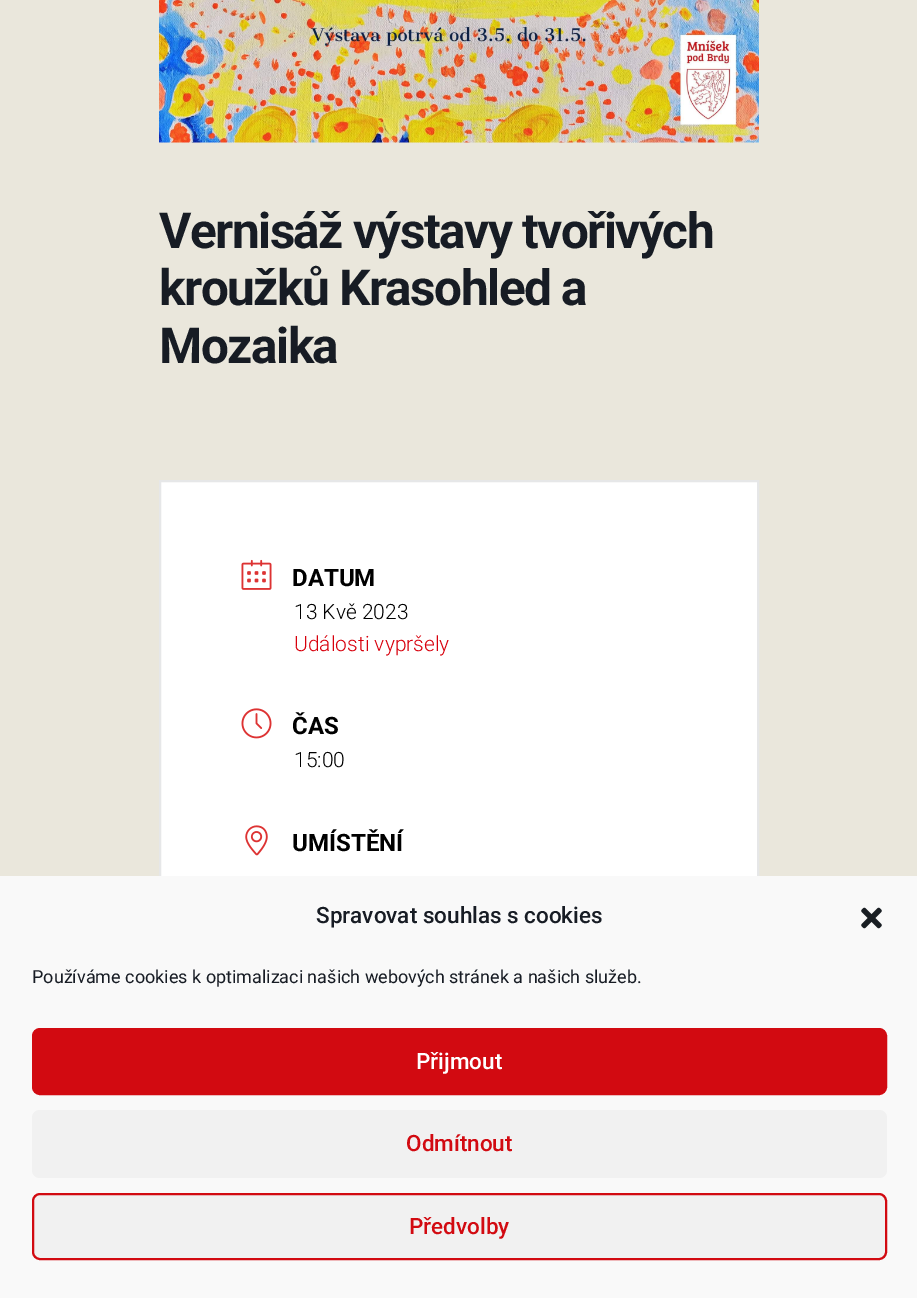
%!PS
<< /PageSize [917 1298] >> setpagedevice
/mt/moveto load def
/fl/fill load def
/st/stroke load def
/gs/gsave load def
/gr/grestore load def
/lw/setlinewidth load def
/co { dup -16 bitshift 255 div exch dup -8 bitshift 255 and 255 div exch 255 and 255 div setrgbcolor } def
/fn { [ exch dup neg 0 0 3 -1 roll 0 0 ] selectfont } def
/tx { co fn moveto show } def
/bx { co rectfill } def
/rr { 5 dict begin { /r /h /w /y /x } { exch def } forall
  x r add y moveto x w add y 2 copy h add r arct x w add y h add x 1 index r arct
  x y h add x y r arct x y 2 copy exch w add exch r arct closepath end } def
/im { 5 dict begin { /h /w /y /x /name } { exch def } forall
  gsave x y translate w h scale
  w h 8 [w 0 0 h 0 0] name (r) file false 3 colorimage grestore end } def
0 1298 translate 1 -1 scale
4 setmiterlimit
0 0 917 1298 16#EAE7DC bx
(media/1.raw) 159 0 600 143 im
161 482 596 394 16#FFFFFF bx
16#E6E7E8 co
2 lw
160 481 598 541 rectstroke
(media/2.raw) 241 559 31 31 im
(media/3.raw) 241 708 31 31 im
(media/4.raw) 245 825 23 31 im
0 876 917 422 16#F9F9F9 bx
(media/5.raw) 861 907 21 22 im
16#D20A11 co
33 1029 853 65 7 rr gs fl gr
st
16#F1F1F1 co
32 1110 855 68 8 rr fl
33 1194 853 65 7 rr gs fl gr
16#D20A11 co
st
/Roboto-Bold 49.5 fn
16#171C24 co
159 248 mt -1.5 0 (Vernisáž výstavy tvořivých) ashow
159 305 mt -1.5 0 (kroužků Krasohled a) ashow
159 363 mt -1.5 0 (Mozaika) ashow
(DATUM) 292 586 /Roboto-Bold 24 16#000000 tx
(13 Kvě 2023) 294 619 /Roboto-Light 21 16#000000 tx
(Události vypršely) 294 651 /Roboto-Light 21 16#D8000C tx
(ČAS) 292 734 /Roboto-Bold 24 16#000000 tx
(15:00) 294 767 /Roboto-Light 21 16#000000 tx
(UMÍSTĚNÍ) 292 851 /Roboto-Bold 24 16#000000 tx
(Spravovat souhlas s cookies) 316 923 /Roboto-Medium 22.5 16#171C24 tx
(Používáme cookies k optimalizaci našich webových stránek a našich služeb.) 32 983 /Roboto-Regular 18 16#171C24 tx
(Přijmout) 416 1069 /Roboto-Medium 22.5 16#FFFFFF tx
(Odmítnout) 406 1151 /Roboto-Medium 22.5 16#D20A11 tx
(Předvolby) 409 1234 /Roboto-Medium 22.5 16#D20A11 tx
showpage
